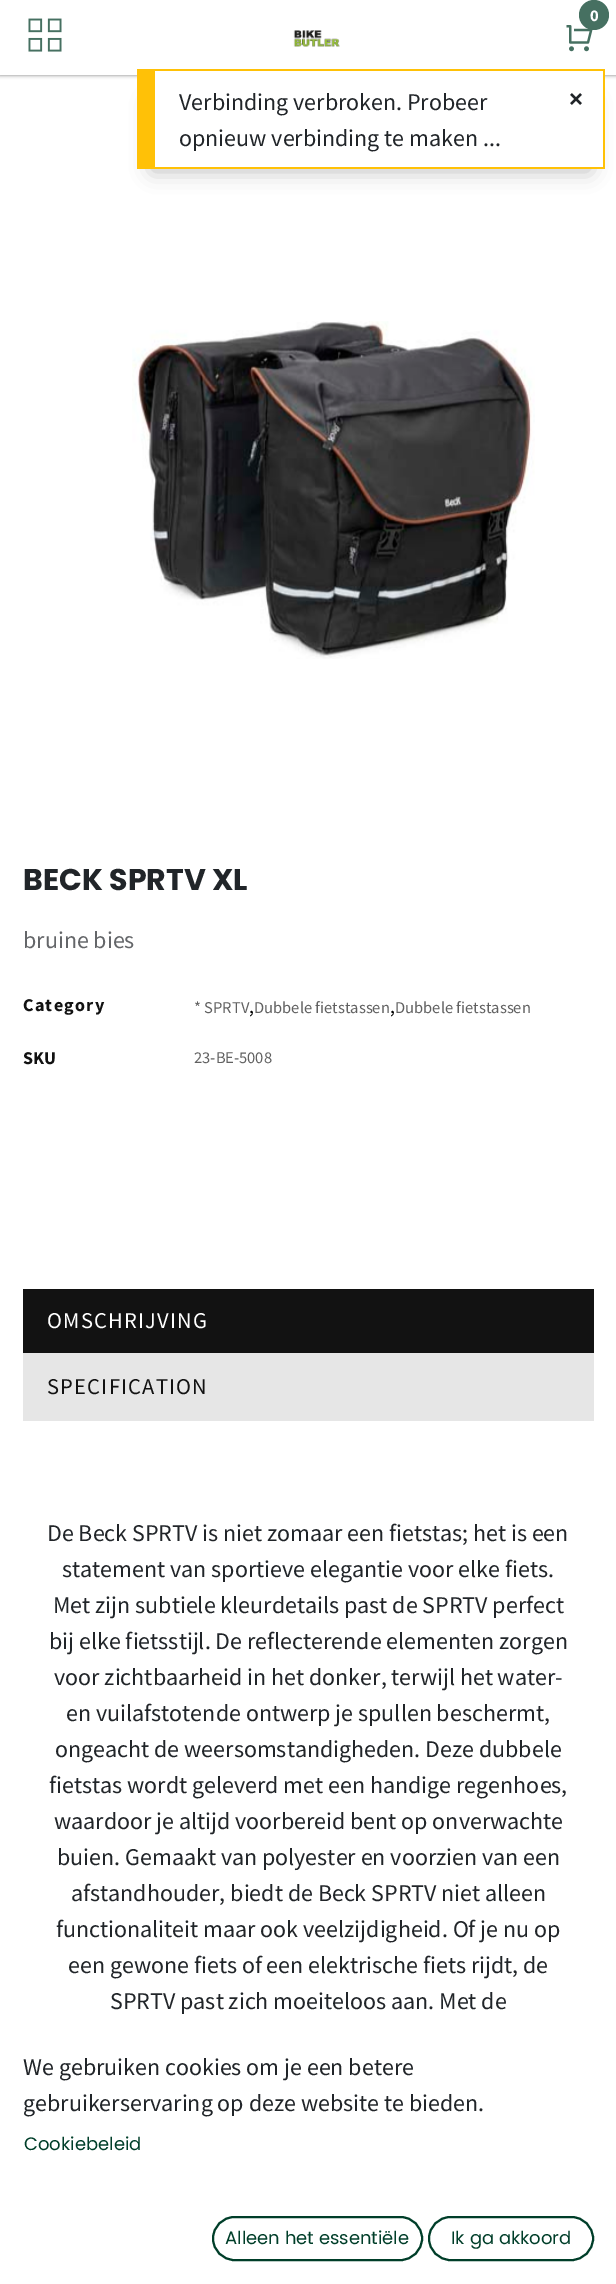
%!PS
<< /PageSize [616 2284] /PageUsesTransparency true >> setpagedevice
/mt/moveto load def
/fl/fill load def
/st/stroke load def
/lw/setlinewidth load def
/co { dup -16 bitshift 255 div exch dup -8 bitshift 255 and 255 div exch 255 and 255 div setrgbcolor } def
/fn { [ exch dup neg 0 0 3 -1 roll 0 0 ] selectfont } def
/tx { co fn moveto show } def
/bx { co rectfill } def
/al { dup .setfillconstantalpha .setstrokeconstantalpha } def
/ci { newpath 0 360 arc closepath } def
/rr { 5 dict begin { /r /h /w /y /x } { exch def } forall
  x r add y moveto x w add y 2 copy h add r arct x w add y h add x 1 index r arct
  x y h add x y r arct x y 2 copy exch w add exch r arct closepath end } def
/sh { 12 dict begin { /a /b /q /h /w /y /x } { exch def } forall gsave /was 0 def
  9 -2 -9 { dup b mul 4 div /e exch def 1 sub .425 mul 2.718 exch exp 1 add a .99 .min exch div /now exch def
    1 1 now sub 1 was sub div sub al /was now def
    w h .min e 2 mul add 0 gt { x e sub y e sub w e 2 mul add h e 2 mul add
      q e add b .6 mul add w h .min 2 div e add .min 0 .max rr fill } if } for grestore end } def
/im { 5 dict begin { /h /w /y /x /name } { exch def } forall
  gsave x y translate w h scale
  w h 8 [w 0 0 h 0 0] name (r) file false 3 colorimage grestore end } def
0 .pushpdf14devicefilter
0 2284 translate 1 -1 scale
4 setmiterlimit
0 0 616 2284 16#FFFFFF bx
16#757575 co
0 0 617 75 0 2 1 sh
0 0 616 75 16#FFFFFF bx
(media/1.raw) 566 25 27 27 im
16#467061 co
594 15 15 ci fl
(media/2.raw) 28 18 34 34 im
(media/3.raw) 293 30 47 17 im
(media/4.raw) 132 321 403 338 im
23 1289 571 64 16#121212 bx
23 1353 571 68 16#E6E6E6 bx
16#003E29 co
2 lw
213 2217 209 43 21.5 rr st
429 2217 164 43 21.5 rr st
16#000000 co
152 102 438 69 0 10.5 .25 sh
155 75 448 92 16#FFFFFF bx
155 69 450 2 16#FFC107 bx
603 69 2 99 16#FFC107 bx
137 167 468 2 16#FFC107 bx
137 69 18 98 16#FFC107 bx
(0) 590 21 /SourceSansPro-Bold 16.5 16#FFFFFF tx
(BECK SPRTV XL) 23 890 /Poppins-Bold 30 16#212529 tx
(bruine bies) 23 948 /SourceSansPro-Regular 24 16#646669 tx
/SourceSansPro-Bold 18 fn
16#121212 co
23 1011 mt 1.25 0 (Category) ashow
(* SPRTV) 194 1013 /SourceSansPro-Regular 16.5 16#616161 tx
(,) 249 1013 /SourceSansPro-Regular 20 16#000000 tx
(Dubbele fietstassen) 254 1013 /SourceSansPro-Regular 16.5 16#616161 tx
(,) 390 1013 /SourceSansPro-Regular 20 16#000000 tx
(Dubbele fietstassen) 395 1013 /SourceSansPro-Regular 16.5 16#616161 tx
(SKU) 23 1064 /SourceSansPro-Bold 18 16#121212 tx
(23-BE-5008) 194 1063 /SourceSansPro-Regular 16.5 16#616161 tx
/SourceSansPro-Regular 22.5 fn
16#FFFFFF co
47 1328 mt 1.25 0 (OMSCHRIJVING) ashow
16#121212 co
47 1394 mt 1.25 0 (SPECIFICATION) ashow
(De Beck SPRTV is niet zomaar een fietstas; het is een) 47 1541 /SourceSansPro-Regular 24 16#212529 tx
(statement van sportieve elegantie voor elke fiets.) 62 1577 /SourceSansPro-Regular 24 16#212529 tx
(Met zijn subtiele kleurdetails past de SPRTV perfect) 53 1613 /SourceSansPro-Regular 24 16#212529 tx
(bij elke fietsstijl. De reflecterende elementen zorgen) 49 1649 /SourceSansPro-Regular 24 16#212529 tx
(voor zichtbaarheid in het donker, terwijl het water-) 54 1685 /SourceSansPro-Regular 24 16#212529 tx
(en vuilafstotende ontwerp je spullen beschermt,) 66 1721 /SourceSansPro-Regular 24 16#212529 tx
(ongeacht de weersomstandigheden. Deze dubbele) 55 1757 /SourceSansPro-Regular 24 16#212529 tx
(fietstas wordt geleverd met een handige regenhoes,) 49 1793 /SourceSansPro-Regular 24 16#212529 tx
(waardoor je altijd voorbereid bent op onverwachte) 54 1829 /SourceSansPro-Regular 24 16#212529 tx
(buien. Gemaakt van polyester en voorzien van een) 57 1865 /SourceSansPro-Regular 24 16#212529 tx
(afstandhouder, biedt de Beck SPRTV niet alleen) 71 1901 /SourceSansPro-Regular 24 16#212529 tx
(functionaliteit maar ook veelzijdigheid. Of je nu op) 56 1937 /SourceSansPro-Regular 24 16#212529 tx
(een gewone fiets of een elektrische fiets rijdt, de) 68 1973 /SourceSansPro-Regular 24 16#212529 tx
(SPRTV past zich moeiteloos aan. Met de) 110 2009 /SourceSansPro-Regular 24 16#212529 tx
(We gebruiken cookies om je een betere) 23 2075 /SourceSansPro-Regular 24 16#212529 tx
(gebruikerservaring op deze website te bieden.) 23 2111 /SourceSansPro-Regular 24 16#212529 tx
(Cookiebeleid) 24 2150 /Poppins-Regular 18 16#003E29 tx
(Alleen het essentiële) 225 2244 /Poppins-Regular 18 16#003E29 tx
(Ik ga akkoord) 451 2244 /Poppins-Regular 18 16#003E29 tx
(Verbinding verbroken. Probeer) 179 110 /SourceSansPro-Regular 24 16#212529 tx
(opnieuw verbinding te maken ...) 179 146 /SourceSansPro-Regular 24 16#212529 tx
(×) 569 107 /LiberationSans-Bold 24 16#212529 tx
.poppdf14devicefilter showpage
